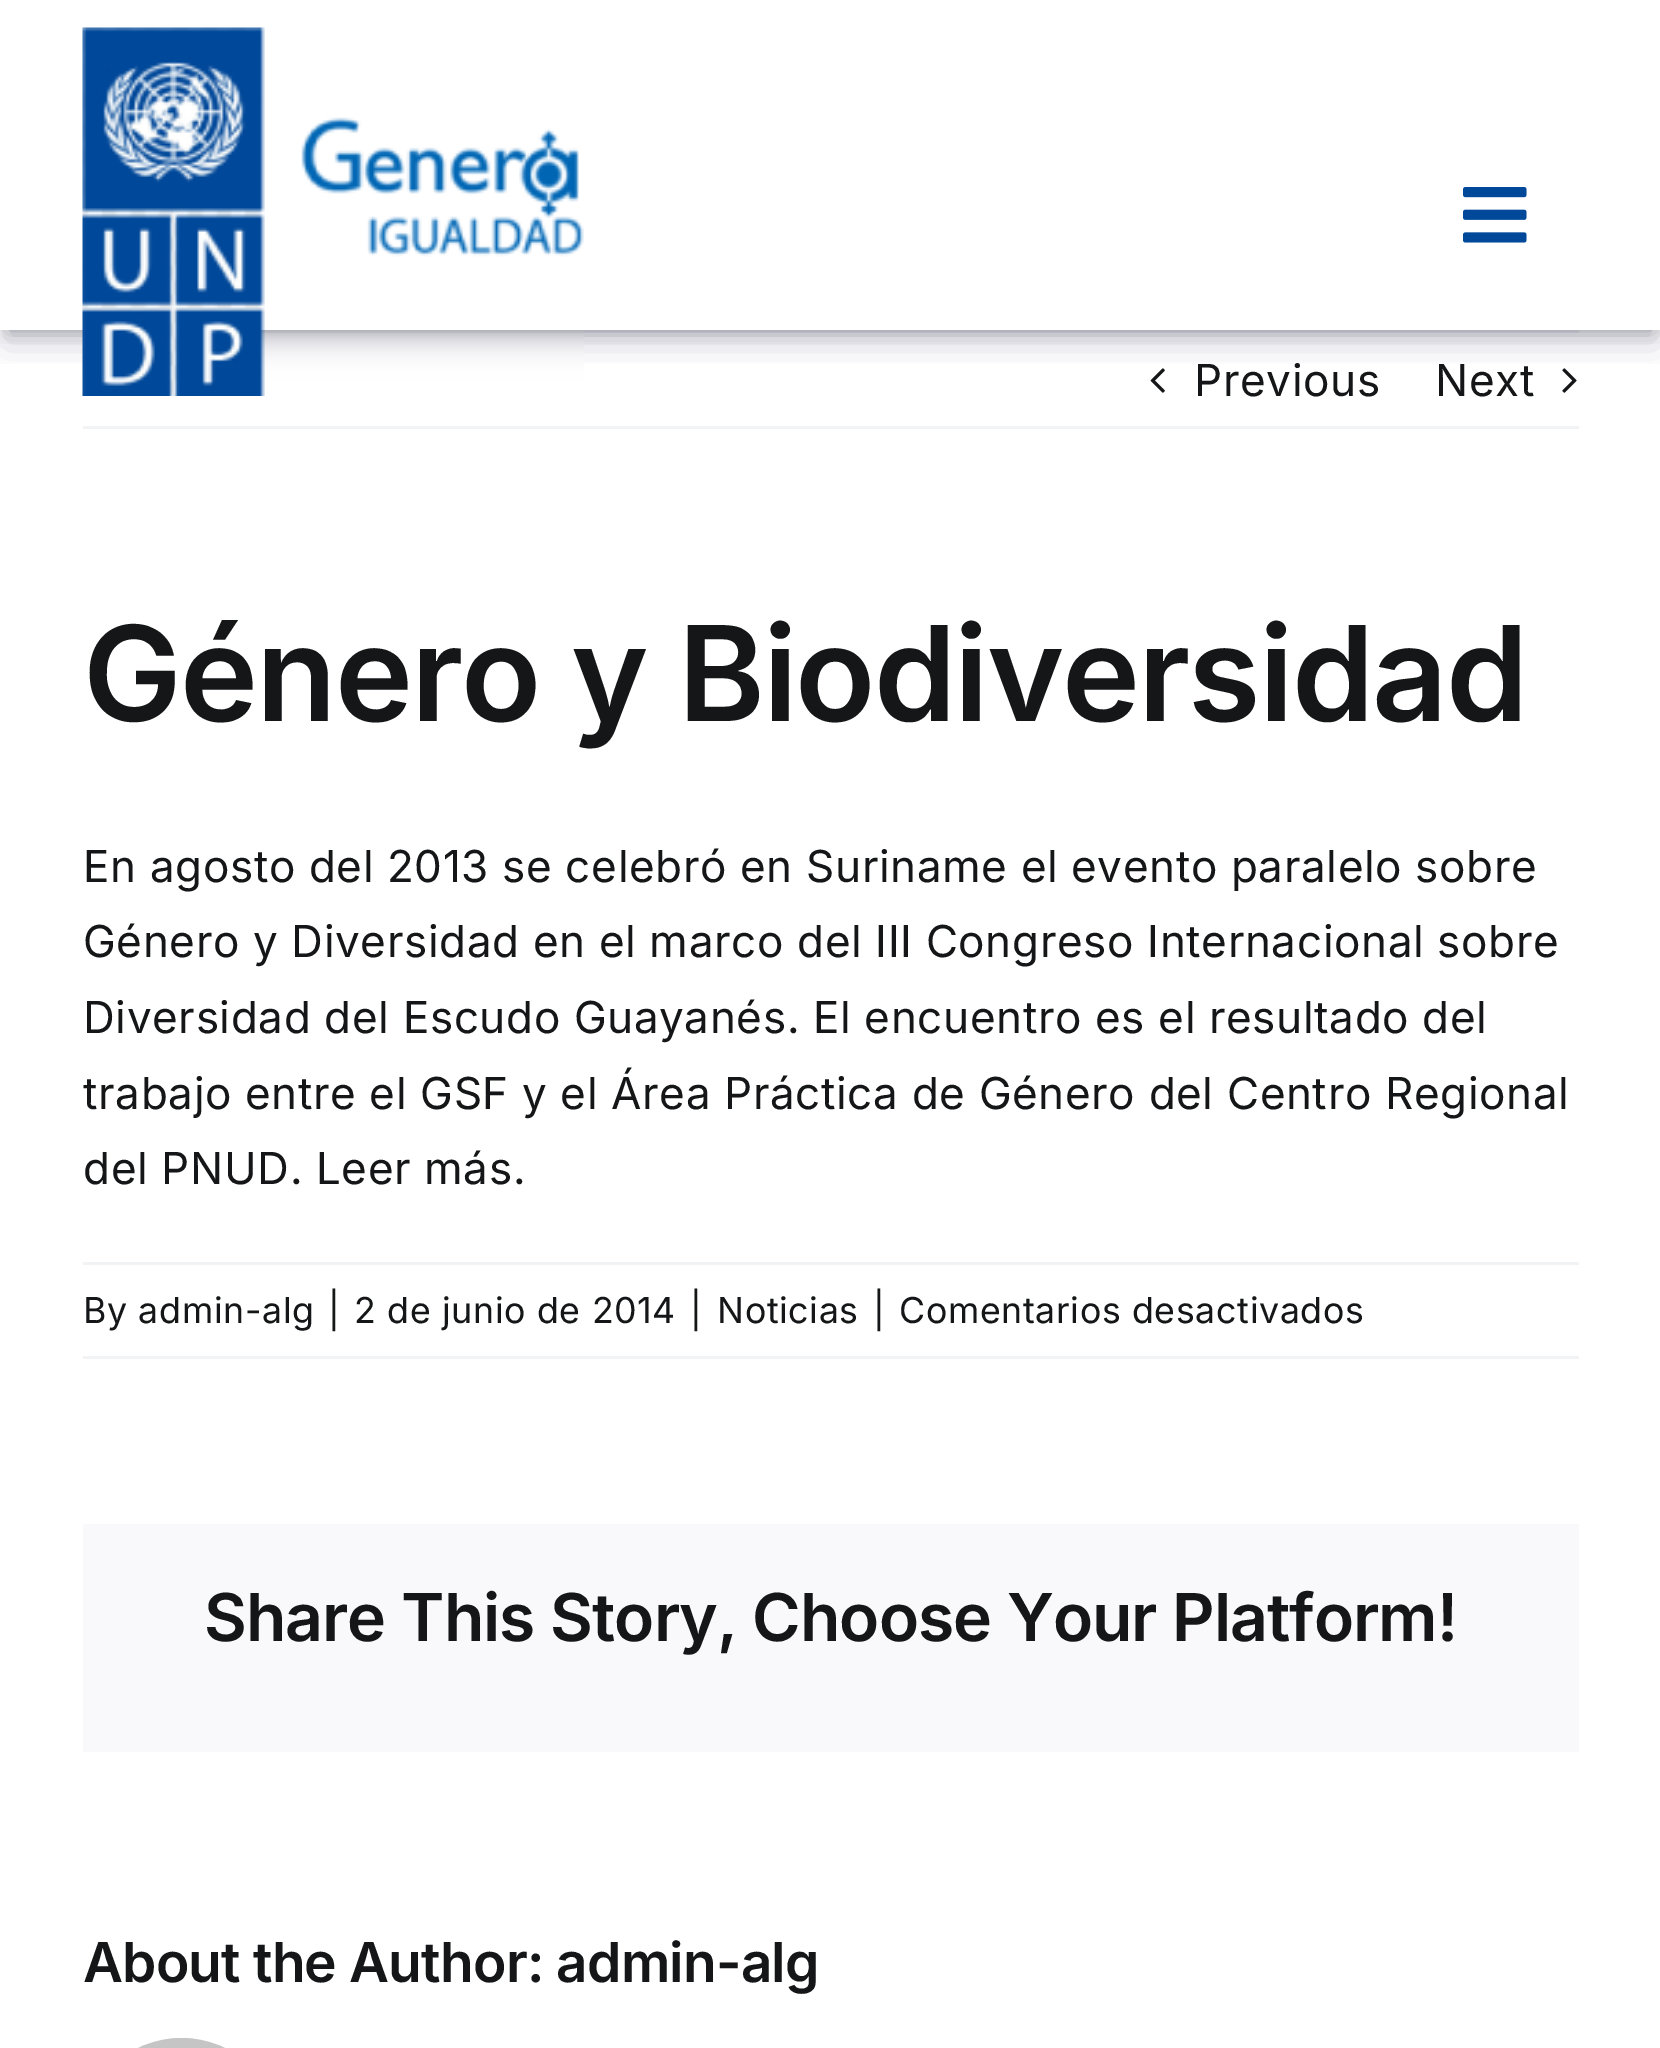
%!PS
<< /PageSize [1660 2048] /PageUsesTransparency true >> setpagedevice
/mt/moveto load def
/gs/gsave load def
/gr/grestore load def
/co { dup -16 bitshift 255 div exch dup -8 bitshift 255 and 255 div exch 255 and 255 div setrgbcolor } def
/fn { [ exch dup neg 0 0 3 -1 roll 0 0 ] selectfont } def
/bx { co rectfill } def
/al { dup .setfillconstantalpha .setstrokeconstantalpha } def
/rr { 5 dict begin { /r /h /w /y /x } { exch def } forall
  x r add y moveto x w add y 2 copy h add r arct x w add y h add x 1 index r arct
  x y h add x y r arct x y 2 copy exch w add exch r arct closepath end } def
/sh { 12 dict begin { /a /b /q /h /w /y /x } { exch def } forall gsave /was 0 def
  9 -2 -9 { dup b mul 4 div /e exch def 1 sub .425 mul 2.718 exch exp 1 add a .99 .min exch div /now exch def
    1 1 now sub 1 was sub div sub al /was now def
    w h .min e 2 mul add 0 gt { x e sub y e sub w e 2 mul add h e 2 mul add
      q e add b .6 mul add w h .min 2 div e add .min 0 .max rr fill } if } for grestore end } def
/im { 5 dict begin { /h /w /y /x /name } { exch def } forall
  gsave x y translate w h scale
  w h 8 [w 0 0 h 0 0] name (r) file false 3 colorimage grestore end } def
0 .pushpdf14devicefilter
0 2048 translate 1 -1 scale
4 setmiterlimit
0 0 1660 2048 16#FFFFFF bx
260 330 1319 3 16#F2F3F5 bx
gs
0 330 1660 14 rectclip
16#000000 co
8 17 1645 313 0 9.5 .3 sh
gr
(media/3.raw) 1150 368 15 25 im
(media/4.raw) 1562 368 15 25 im
gs
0 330 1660 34 rectclip
16#32325D co
6 22 1650 319 0 16.5 .25 sh
gr
(media/1.raw) 82 27 502 369 im
(media/2.raw) 1463 187 64 56 im
83 426 1496 3 16#F2F3F5 bx
83 1262 1496 3 16#F2F3F5 bx
83 1356 1496 3 16#F2F3F5 bx
83 1524 1496 228 16#F9F9FB bx
(media/5.raw) 138 2038 87 10 im
/Inter-Regular 44 fn
16#141617 co
1194 396 mt .65 0 (Previous) ashow
1435 396 mt .65 0 (Next) ashow
/Inter-SemiBold 132 fn
83 721 mt -2 0 (Género y Biodiversidad) ashow
/Inter-Regular 44 fn
83 882 mt .65 0 (En agosto del 2013 se celebró en Suriname el evento paralelo sobre) ashow
83 957 mt .65 0 (Género y Diversidad en el marco del III Congreso Internacional sobre) ashow
83 1033 mt .65 0 (Diversidad del Escudo Guayanés. El encuentro es el resultado del) ashow
83 1109 mt .65 0 (trabajo entre el GSF y el Área Práctica de Género del Centro Regional) ashow
83 1184 mt .65 0 (del PNUD. Leer más.) ashow
/Inter-Regular 35.75 fn
83 1323 mt .65 0 (By admin-alg) ashow
328 1323 mt .65 0 (|) ashow
354 1323 mt .65 0 (2 de junio de 2014) ashow
690 1323 mt .65 0 (|) ashow
717 1323 mt .65 0 (Noticias) ashow
873 1323 mt .65 0 (|) ashow
899 1323 mt .65 0 (Comentarios desactivados) ashow
/Inter-SemiBold 66 fn
204 1641 mt -1 0 (Share This Story, Choose Your Platform!) ashow
/Inter-SemiBold 55 fn
83 1982 mt -.8 0 (About the Author: admin-alg) ashow
.poppdf14devicefilter showpage
